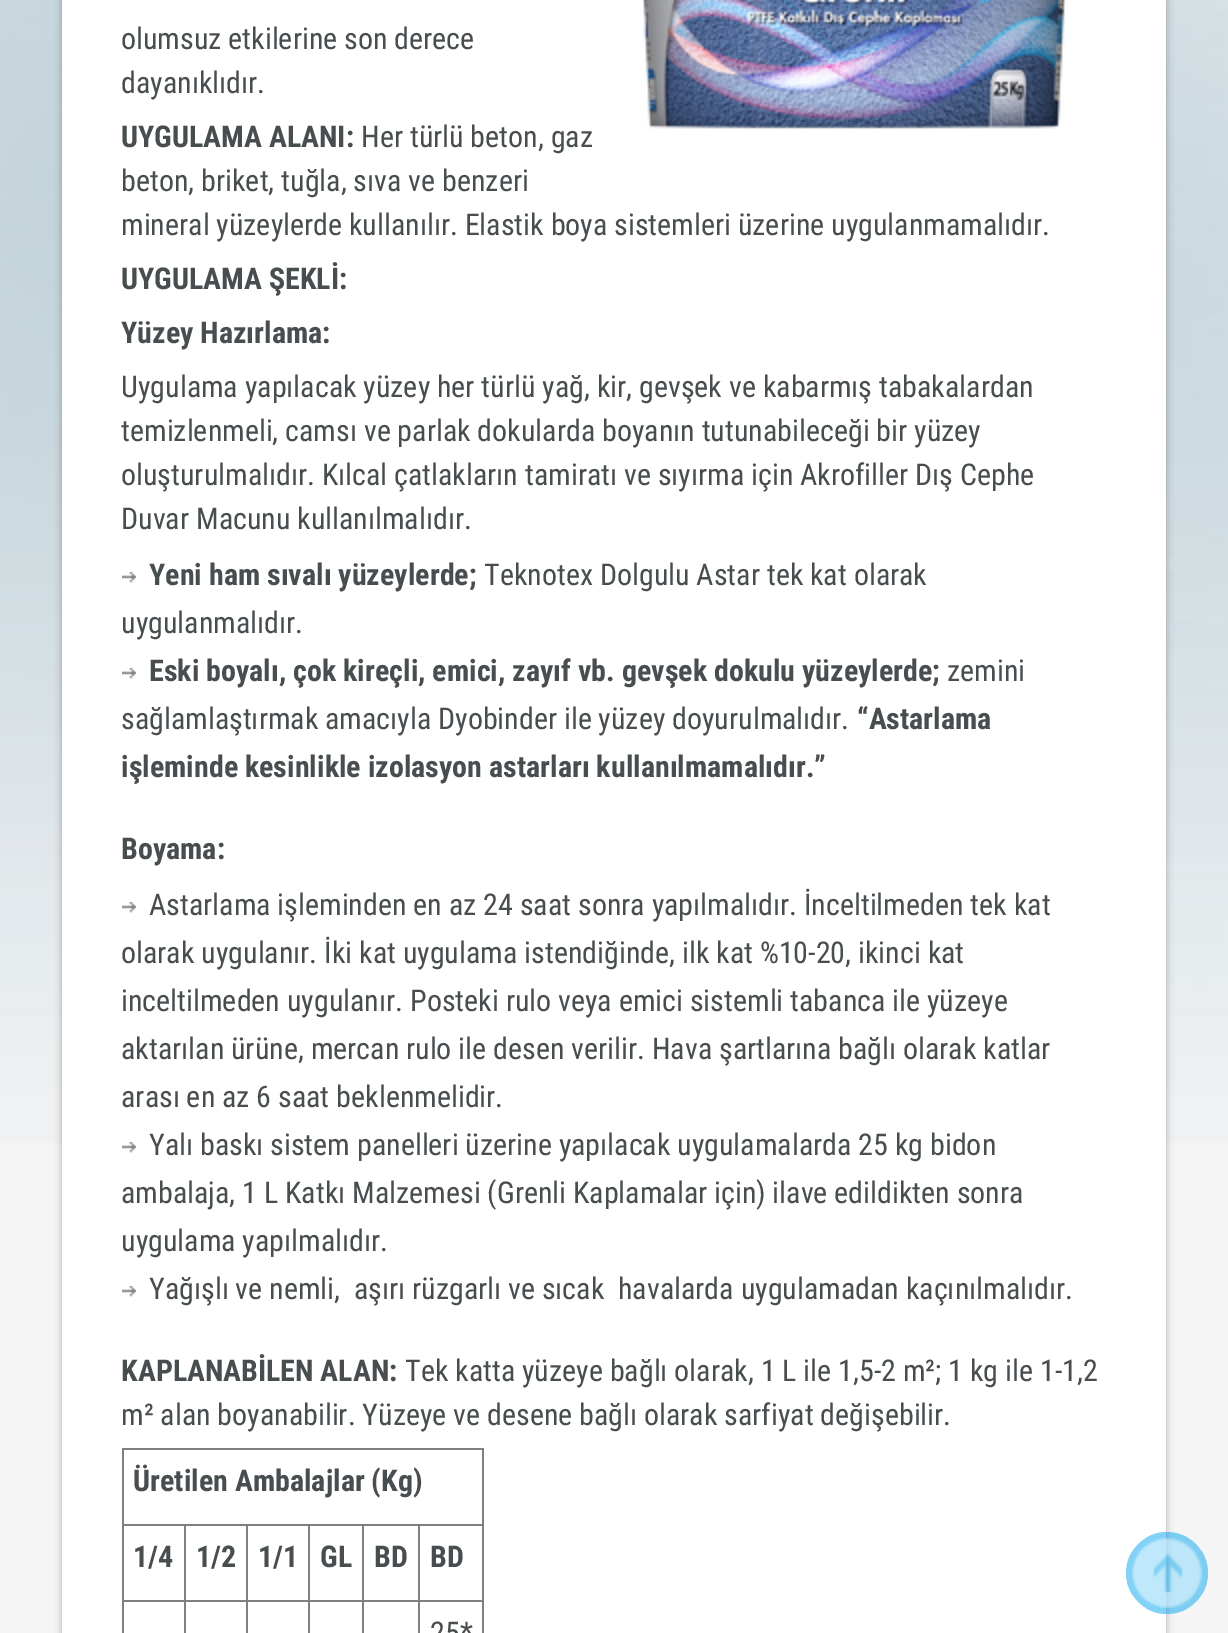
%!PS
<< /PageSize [1228 1633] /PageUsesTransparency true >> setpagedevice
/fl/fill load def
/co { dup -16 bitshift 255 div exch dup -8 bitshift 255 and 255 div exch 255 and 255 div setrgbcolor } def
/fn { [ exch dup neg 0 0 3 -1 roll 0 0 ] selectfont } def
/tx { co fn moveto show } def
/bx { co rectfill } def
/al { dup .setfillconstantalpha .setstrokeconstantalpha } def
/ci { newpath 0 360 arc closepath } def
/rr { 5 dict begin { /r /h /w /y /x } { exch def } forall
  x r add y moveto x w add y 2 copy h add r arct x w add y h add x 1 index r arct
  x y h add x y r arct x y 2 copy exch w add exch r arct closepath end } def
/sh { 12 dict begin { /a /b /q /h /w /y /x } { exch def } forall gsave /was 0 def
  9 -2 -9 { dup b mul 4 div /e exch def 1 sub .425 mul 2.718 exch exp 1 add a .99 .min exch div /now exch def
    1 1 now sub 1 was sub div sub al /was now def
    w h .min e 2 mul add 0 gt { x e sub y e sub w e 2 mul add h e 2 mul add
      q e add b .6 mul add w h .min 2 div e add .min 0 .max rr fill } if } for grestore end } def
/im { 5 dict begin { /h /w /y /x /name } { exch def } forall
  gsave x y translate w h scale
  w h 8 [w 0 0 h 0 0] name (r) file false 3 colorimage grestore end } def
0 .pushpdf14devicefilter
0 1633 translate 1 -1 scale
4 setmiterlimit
0 0 1228 1633 16#F5F5F5 bx
(media/1.raw) 0 0 1228 1143 im
16#000000 co
62 -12 1104 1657 0 4 .3 sh
62 0 1104 1633 16#FFFFFF bx
(media/2.raw) 642 0 424 129 im
(media/3.raw) 122 572 14 11 im
(media/3.raw) 122 668 14 11 im
(media/3.raw) 122 902 14 11 im
(media/3.raw) 122 1142 14 11 im
(media/3.raw) 122 1286 14 11 im
122 1448 362 2 16#808080 bx
482 1448 2 185 16#808080 bx
122 1448 2 185 16#808080 bx
418 1524 66 2 16#808080 bx
418 1600 66 2 16#808080 bx
418 1600 2 33 16#808080 bx
362 1600 58 2 16#808080 bx
418 1524 2 78 16#808080 bx
362 1524 58 2 16#808080 bx
362 1600 2 33 16#808080 bx
308 1600 56 2 16#808080 bx
362 1524 2 78 16#808080 bx
308 1524 56 2 16#808080 bx
308 1600 2 33 16#808080 bx
246 1600 64 2 16#808080 bx
308 1524 2 78 16#808080 bx
246 1524 64 2 16#808080 bx
246 1600 2 33 16#808080 bx
184 1600 64 2 16#808080 bx
246 1524 2 78 16#808080 bx
184 1524 64 2 16#808080 bx
184 1600 2 33 16#808080 bx
122 1600 64 2 16#808080 bx
184 1524 2 78 16#808080 bx
122 1524 64 2 16#808080 bx
0.49 al
16#00A4EF co
1167 1573 41 ci fl
1 al
(media/4.raw) 1132 1538 70 70 im
(olumsuz etkilerine son derece) 121 49 /RobotoCondensed-Regular 30 16#484D4F tx
(dayanıklıdır.) 121 93 /RobotoCondensed-Regular 30 16#484D4F tx
(UYGULAMA ALANI:) 121 147 /RobotoCondensed-Bold 30 16#484D4F tx
(Her türlü beton, gaz) 361 147 /RobotoCondensed-Regular 30 16#484D4F tx
(beton, briket, tuğla, sıva ve benzeri) 121 191 /RobotoCondensed-Regular 30 16#484D4F tx
(mineral yüzeylerde kullanılır. Elastik boya sistemleri üzerine uygulanmamalıdır.) 121 235 /RobotoCondensed-Regular 30 16#484D4F tx
(UYGULAMA ŞEKLİ:) 121 289 /RobotoCondensed-Bold 30 16#484D4F tx
(Yüzey Hazırlama:) 121 343 /RobotoCondensed-Bold 30 16#484D4F tx
(Uygulama yapılacak yüzey her türlü yağ, kir, gevşek ve kabarmış tabakalardan) 121 397 /RobotoCondensed-Regular 30 16#484D4F tx
(temizlenmeli, camsı ve parlak dokularda boyanın tutunabileceği bir yüzey) 121 441 /RobotoCondensed-Regular 30 16#484D4F tx
(oluşturulmalıdır. Kılcal çatlakların tamiratı ve sıyırma için Akrofiller Dış Cephe) 121 485 /RobotoCondensed-Regular 30 16#484D4F tx
(Duvar Macunu kullanılmalıdır.) 121 529 /RobotoCondensed-Regular 30 16#484D4F tx
(Yeni ham sıvalı yüzeylerde;) 149 585 /RobotoCondensed-Bold 30 16#484D4F tx
(Teknotex Dolgulu Astar tek kat olarak) 484 585 /RobotoCondensed-Regular 30 16#484D4F tx
(uygulanmalıdır.) 121 633 /RobotoCondensed-Regular 30 16#484D4F tx
(Eski boyalı, çok kireçli, emici, zayıf vb. gevşek dokulu yüzeylerde;) 149 681 /RobotoCondensed-Bold 30 16#484D4F tx
(zemini) 947 681 /RobotoCondensed-Regular 30 16#484D4F tx
(sağlamlaştırmak amacıyla Dyobinder ile yüzey doyurulmalıdır.) 121 729 /RobotoCondensed-Regular 30 16#484D4F tx
(“Astarlama) 857 729 /RobotoCondensed-Bold 30 16#484D4F tx
(işleminde kesinlikle izolasyon astarları kullanılmamalıdır.”) 121 777 /RobotoCondensed-Bold 30 16#484D4F tx
(Boyama:) 121 859 /RobotoCondensed-Bold 30 16#484D4F tx
(Astarlama işleminden en az 24 saat sonra yapılmalıdır. İnceltilmeden tek kat) 149 915 /RobotoCondensed-Regular 30 16#484D4F tx
(olarak uygulanır. İki kat uygulama istendiğinde, ilk kat %10-20, ikinci kat) 121 963 /RobotoCondensed-Regular 30 16#484D4F tx
(inceltilmeden uygulanır. Posteki rulo veya emici sistemli tabanca ile yüzeye) 121 1011 /RobotoCondensed-Regular 30 16#484D4F tx
(aktarılan ürüne, mercan rulo ile desen verilir. Hava şartlarına bağlı olarak katlar) 121 1059 /RobotoCondensed-Regular 30 16#484D4F tx
(arası en az 6 saat beklenmelidir.) 121 1107 /RobotoCondensed-Regular 30 16#484D4F tx
(Yalı baskı sistem panelleri üzerine yapılacak uygulamalarda 25 kg bidon) 149 1155 /RobotoCondensed-Regular 30 16#484D4F tx
(ambalaja, 1 L Katkı Malzemesi \(Grenli Kaplamalar için\) ilave edildikten sonra) 121 1203 /RobotoCondensed-Regular 30 16#484D4F tx
(uygulama yapılmalıdır.) 121 1251 /RobotoCondensed-Regular 30 16#484D4F tx
(Yağışlı ve nemli,  aşırı rüzgarlı ve sıcak  havalarda uygulamadan kaçınılmalıdır.) 149 1299 /RobotoCondensed-Regular 30 16#484D4F tx
(KAPLANABİLEN ALAN:) 121 1381 /RobotoCondensed-Bold 30 16#484D4F tx
(Tek katta yüzeye bağlı olarak, 1 L ile 1,5-2 m²; 1 kg ile 1-1,2) 405 1381 /RobotoCondensed-Regular 30 16#484D4F tx
(m² alan boyanabilir. Yüzeye ve desene bağlı olarak sarfiyat değişebilir.) 121 1425 /RobotoCondensed-Regular 30 16#484D4F tx
(Üretilen Ambalajlar \(Kg\)) 133 1491 /RobotoCondensed-Bold 30 16#484D4F tx
(1/4) 133 1567 /RobotoCondensed-Bold 30 16#484D4F tx
(1/2) 196 1567 /RobotoCondensed-Bold 30 16#484D4F tx
(1/1) 258 1567 /RobotoCondensed-Bold 30 16#484D4F tx
(GL) 320 1567 /RobotoCondensed-Bold 30 16#484D4F tx
(BD) 374 1567 /RobotoCondensed-Bold 30 16#484D4F tx
(BD) 430 1567 /RobotoCondensed-Bold 30 16#484D4F tx
(25*) 430 1643 /RobotoCondensed-Regular 30 16#484D4F tx
.poppdf14devicefilter showpage
